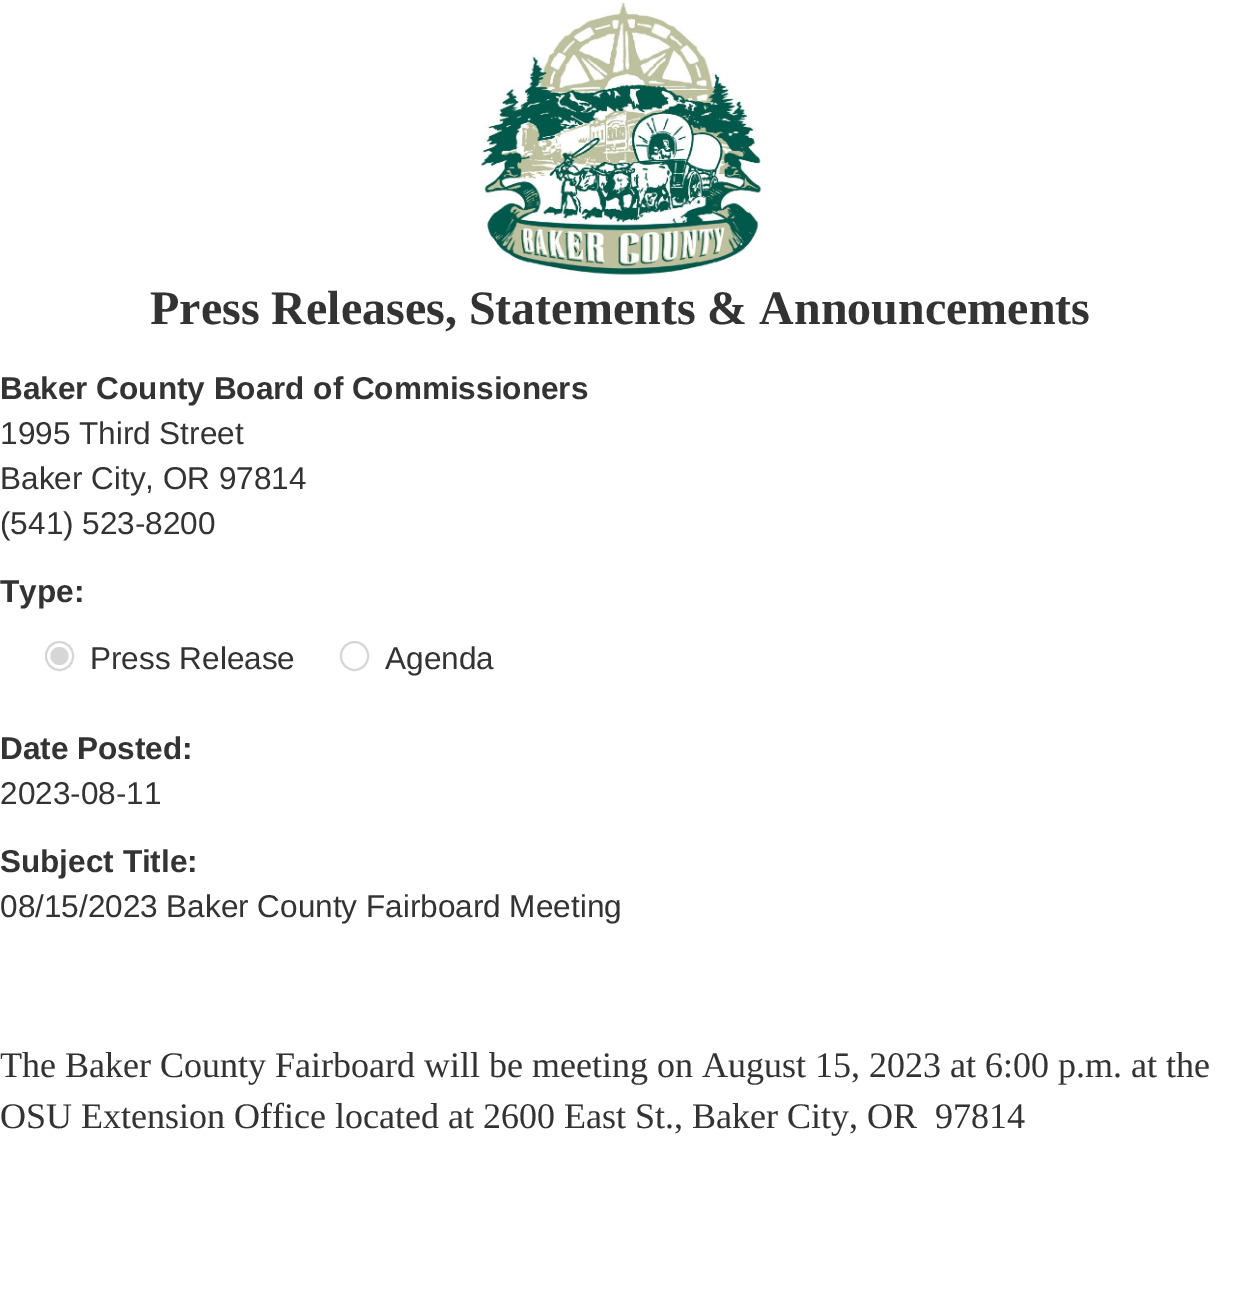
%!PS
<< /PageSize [1239 1308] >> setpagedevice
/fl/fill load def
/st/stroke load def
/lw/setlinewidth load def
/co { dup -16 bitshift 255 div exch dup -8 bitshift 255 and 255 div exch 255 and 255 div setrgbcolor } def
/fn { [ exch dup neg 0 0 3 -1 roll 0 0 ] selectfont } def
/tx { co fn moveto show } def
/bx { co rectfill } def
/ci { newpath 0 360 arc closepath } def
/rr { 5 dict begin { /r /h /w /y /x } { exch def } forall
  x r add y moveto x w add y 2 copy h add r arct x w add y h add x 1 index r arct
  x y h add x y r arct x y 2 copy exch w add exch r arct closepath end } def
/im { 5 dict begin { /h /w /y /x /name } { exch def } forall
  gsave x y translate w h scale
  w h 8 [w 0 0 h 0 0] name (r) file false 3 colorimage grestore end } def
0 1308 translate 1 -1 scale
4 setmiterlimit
0 0 1239 1308 16#FFFFFF bx
(media/1.raw) 481 2 280 273 im
16#D6D6D6 co
2 lw
46 642 27 28 13.5 rr st
59.5 656 9 ci fl
341 642 27 28 13.5 rr st
(Press Releases, Statements & Announcements) 150 324 /LiberationSerif-Bold 48 16#333333 tx
(Baker County Board of Commissioners) 0 399 /LiberationSans-Bold 31.5 16#333333 tx
(1995 Third Street) 0 444 /LiberationSans-Regular 31.5 16#333333 tx
(Baker City, OR 97814) 0 489 /LiberationSans-Regular 31.5 16#333333 tx
(\(541\) 523-8200) 0 534 /LiberationSans-Regular 31.5 16#333333 tx
(Type:) 0 602 /LiberationSans-Bold 31.5 16#333333 tx
(Press Release) 90 669 /LiberationSans-Regular 31.5 16#333333 tx
(Agenda) 385 669 /LiberationSans-Regular 31.5 16#333333 tx
(Date Posted:) 0 759 /LiberationSans-Bold 31.5 16#333333 tx
(2023-08-11) 0 804 /LiberationSans-Regular 31.5 16#333333 tx
(Subject Title:) 0 872 /LiberationSans-Bold 31.5 16#333333 tx
(08/15/2023 Baker County Fairboard Meeting) 0 917 /LiberationSans-Regular 31.5 16#333333 tx
(The Baker County Fairboard will be meeting on August 15, 2023 at 6:00 p.m. at the) 0 1077 /LiberationSerif-Regular 36 16#333333 tx
(OSU Extension Office located at 2600 East St., Baker City, OR  97814) 0 1128 /LiberationSerif-Regular 36 16#333333 tx
showpage
